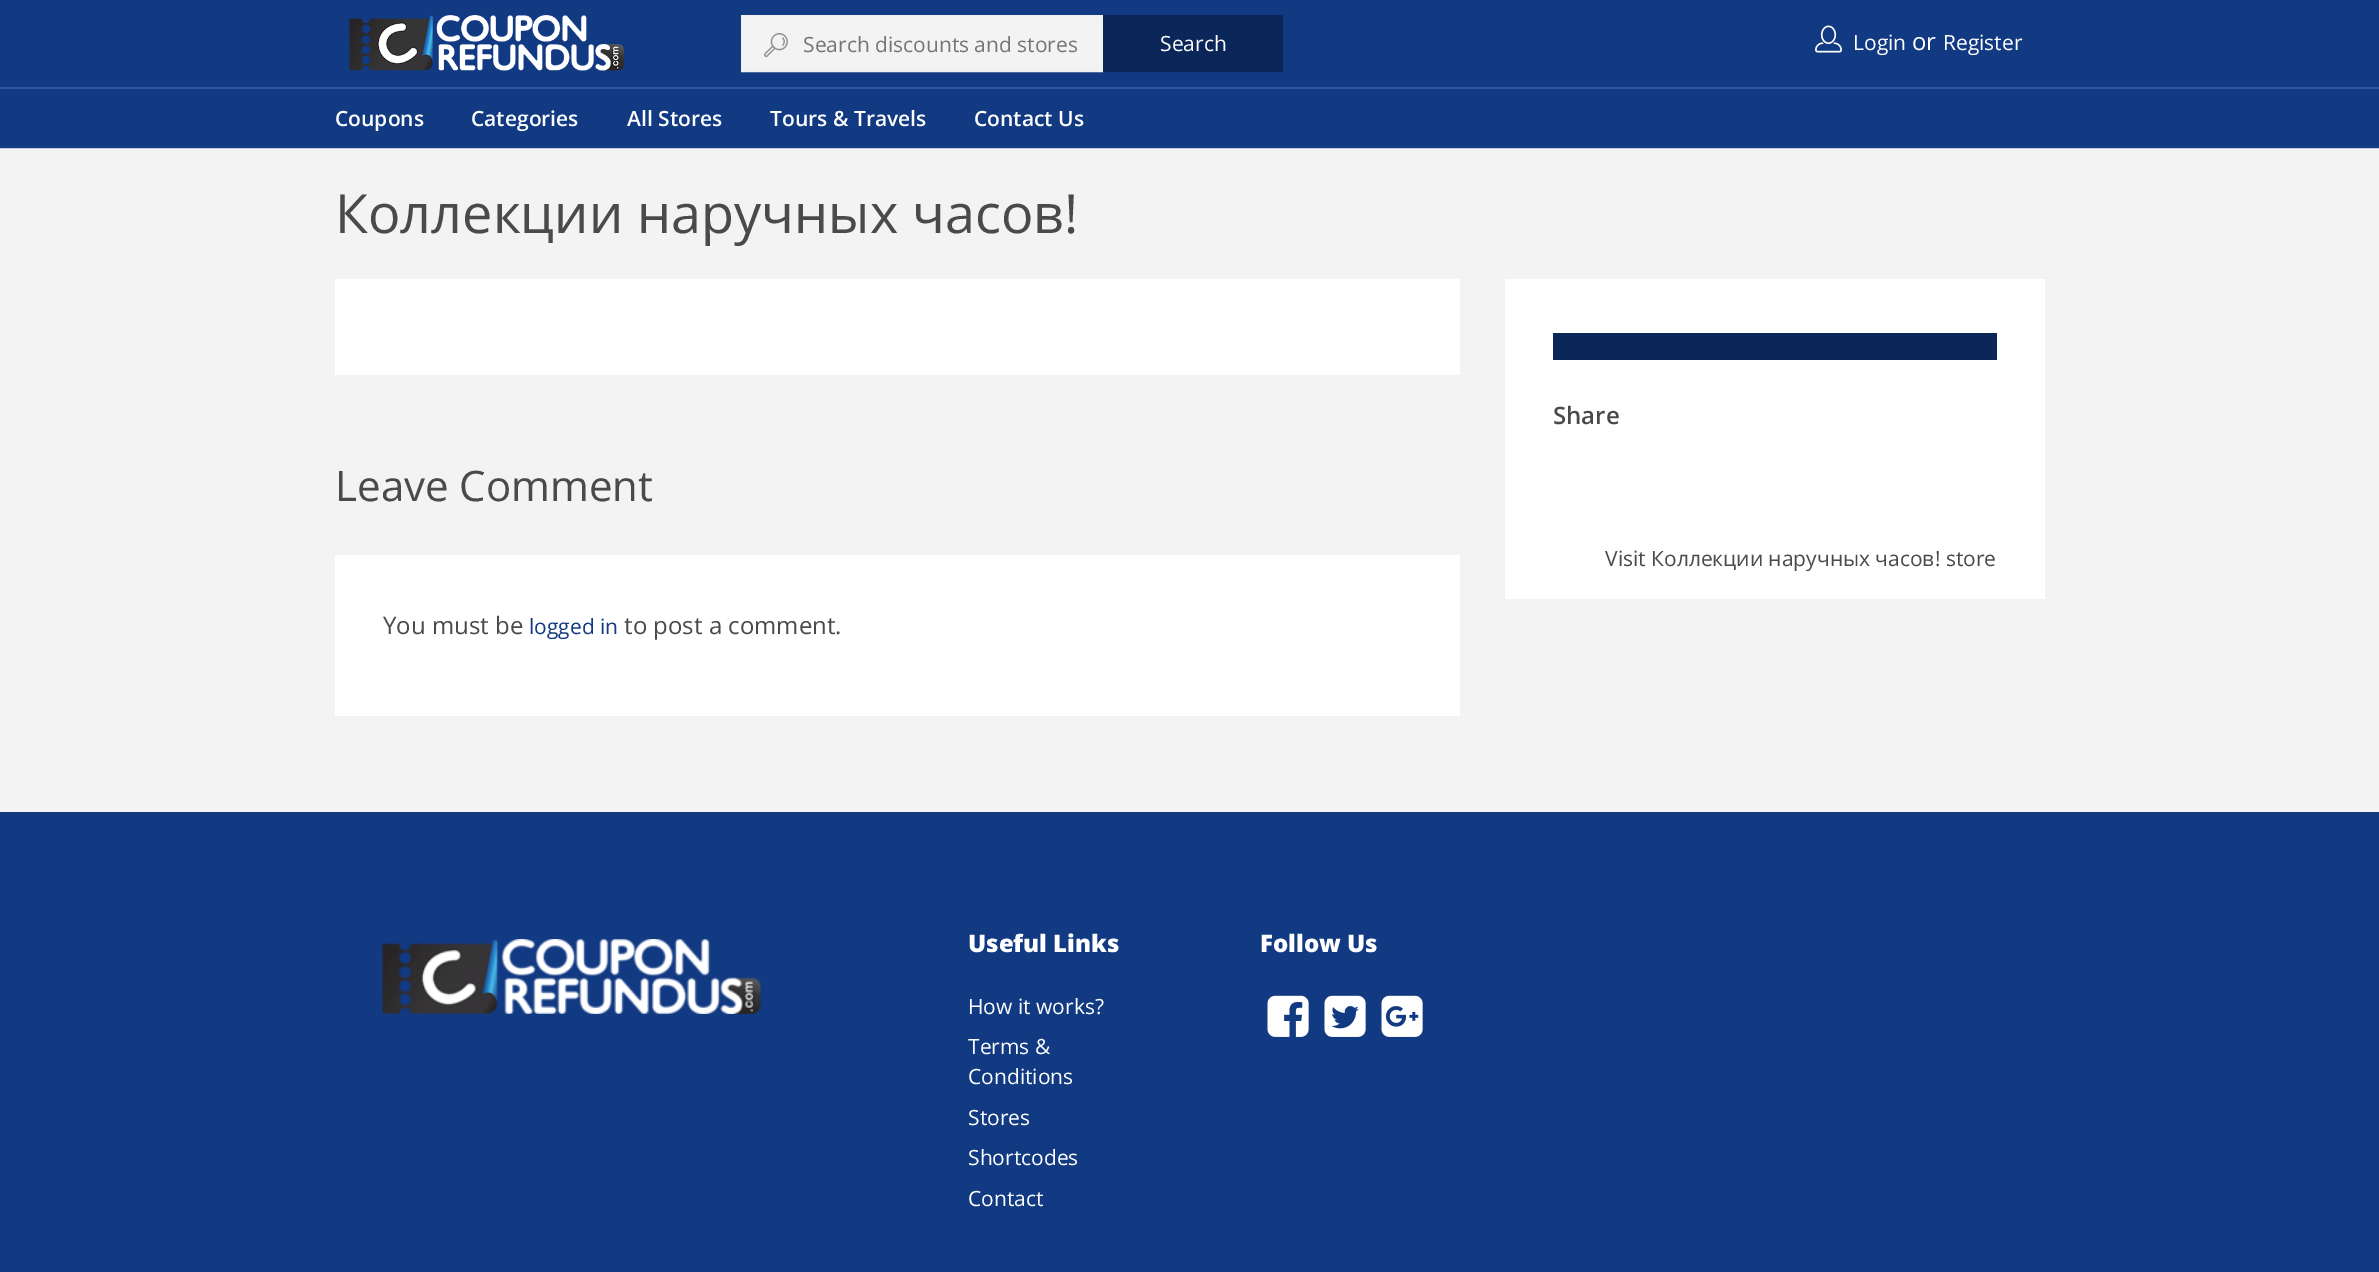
%!PS
<< /PageSize [2379 1272] >> setpagedevice
/mt/moveto load def
/li/lineto load def
/cp/closepath load def
/fl/fill load def
/st/stroke load def
/gs/gsave load def
/gr/grestore load def
/lw/setlinewidth load def
/co { dup -16 bitshift 255 div exch dup -8 bitshift 255 and 255 div exch 255 and 255 div setrgbcolor } def
/fn { [ exch dup neg 0 0 3 -1 roll 0 0 ] selectfont } def
/tx { co fn moveto show } def
/bx { co rectfill } def
/im { 5 dict begin { /h /w /y /x /name } { exch def } forall
  gsave x y translate w h scale
  w h 8 [w 0 0 h 0 0] name (r) file false 3 colorimage grestore end } def
0 1272 translate 1 -1 scale
4 setmiterlimit
0 0 2379 1272 16#F3F3F3 bx
0 0 2379 148 16#123A83 bx
0 148 2379 1 16#C4CCDB bx
(media/1.raw) 349 15 275 56 im
16#F3F3F3 co
742 16 mt 1102 16 li 1102 71 li 742 71 li cp gs fl gr
16#F1F1F1 co
2 lw
st
1103 15 180 57 16#0B2658 bx
(media/2.raw) 1815 25 27 28 im
0 87 2379 2 16#315AA6 bx
335 279 1125 96 16#FFFFFF bx
335 555 1125 161 16#FFFFFF bx
1505 279 540 320 16#FFFFFF bx
1553 333 444 27 16#0B2658 bx
0 812 2379 460 16#123A83 bx
(media/3.raw) 382 939 379 75 im
(media/4.raw) 1267 995 42 42 im
(media/5.raw) 1324 995 42 42 im
(media/6.raw) 1381 995 42 42 im
(') 764 57 /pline-Regular 24 16#919191 tx
(Search discounts and stores) 803 52 /OpenSans-Regular 21 16#757575 tx
(Search) 1160 51 /OpenSans-Regular 21 16#FFFFFF tx
(Login) 1853 50 /OpenSans-Regular 21 16#FFFFFF tx
(or) 1912 50 /OpenSans-Regular 24 16#FFFFFF tx
(Register) 1943 50 /OpenSans-Regular 21 16#FFFFFF tx
(Coupons) 335 126 /OpenSans-SemiBold 21 16#FFFFFF tx
(Categories) 471 126 /OpenSans-SemiBold 21 16#FFFFFF tx
(All Stores) 627 126 /OpenSans-SemiBold 21 16#FFFFFF tx
(Tours & Travels) 770 126 /OpenSans-SemiBold 21 16#FFFFFF tx
(Contact Us) 974 126 /OpenSans-SemiBold 21 16#FFFFFF tx
(Коллекции наручных часов!) 335 233 /OpenSans-Regular 54 16#4A4A4A tx
(Leave Comment) 335 501 /OpenSans-Regular 42 16#4A4A4A tx
(You must be) 383 634 /OpenSans-Regular 24 16#4A4A4A tx
(logged in) 529 634 /OpenSans-Regular 21 16#123A83 tx
(to post a comment.) 624 634 /OpenSans-Regular 24 16#4A4A4A tx
(Share) 1553 424 /OpenSans-SemiBold 24 16#4A4A4A tx
(Visit Коллекции наручных часов! store) 1605 566 /OpenSans-Regular 21 16#4A4A4A tx
(Useful Links) 968 952 /OpenSans-ExtraBold 24 16#FFFFFF tx
(How it works?) 968 1014 /OpenSans-Regular 21 16#FFFFFF tx
(Terms &) 968 1054 /OpenSans-Regular 21 16#FFFFFF tx
(Conditions) 968 1084 /OpenSans-Regular 21 16#FFFFFF tx
(Stores) 968 1125 /OpenSans-Regular 21 16#FFFFFF tx
(Shortcodes) 968 1165 /OpenSans-Regular 21 16#FFFFFF tx
(Contact) 968 1206 /OpenSans-Regular 21 16#FFFFFF tx
(Follow Us) 1260 952 /OpenSans-ExtraBold 24 16#FFFFFF tx
showpage
